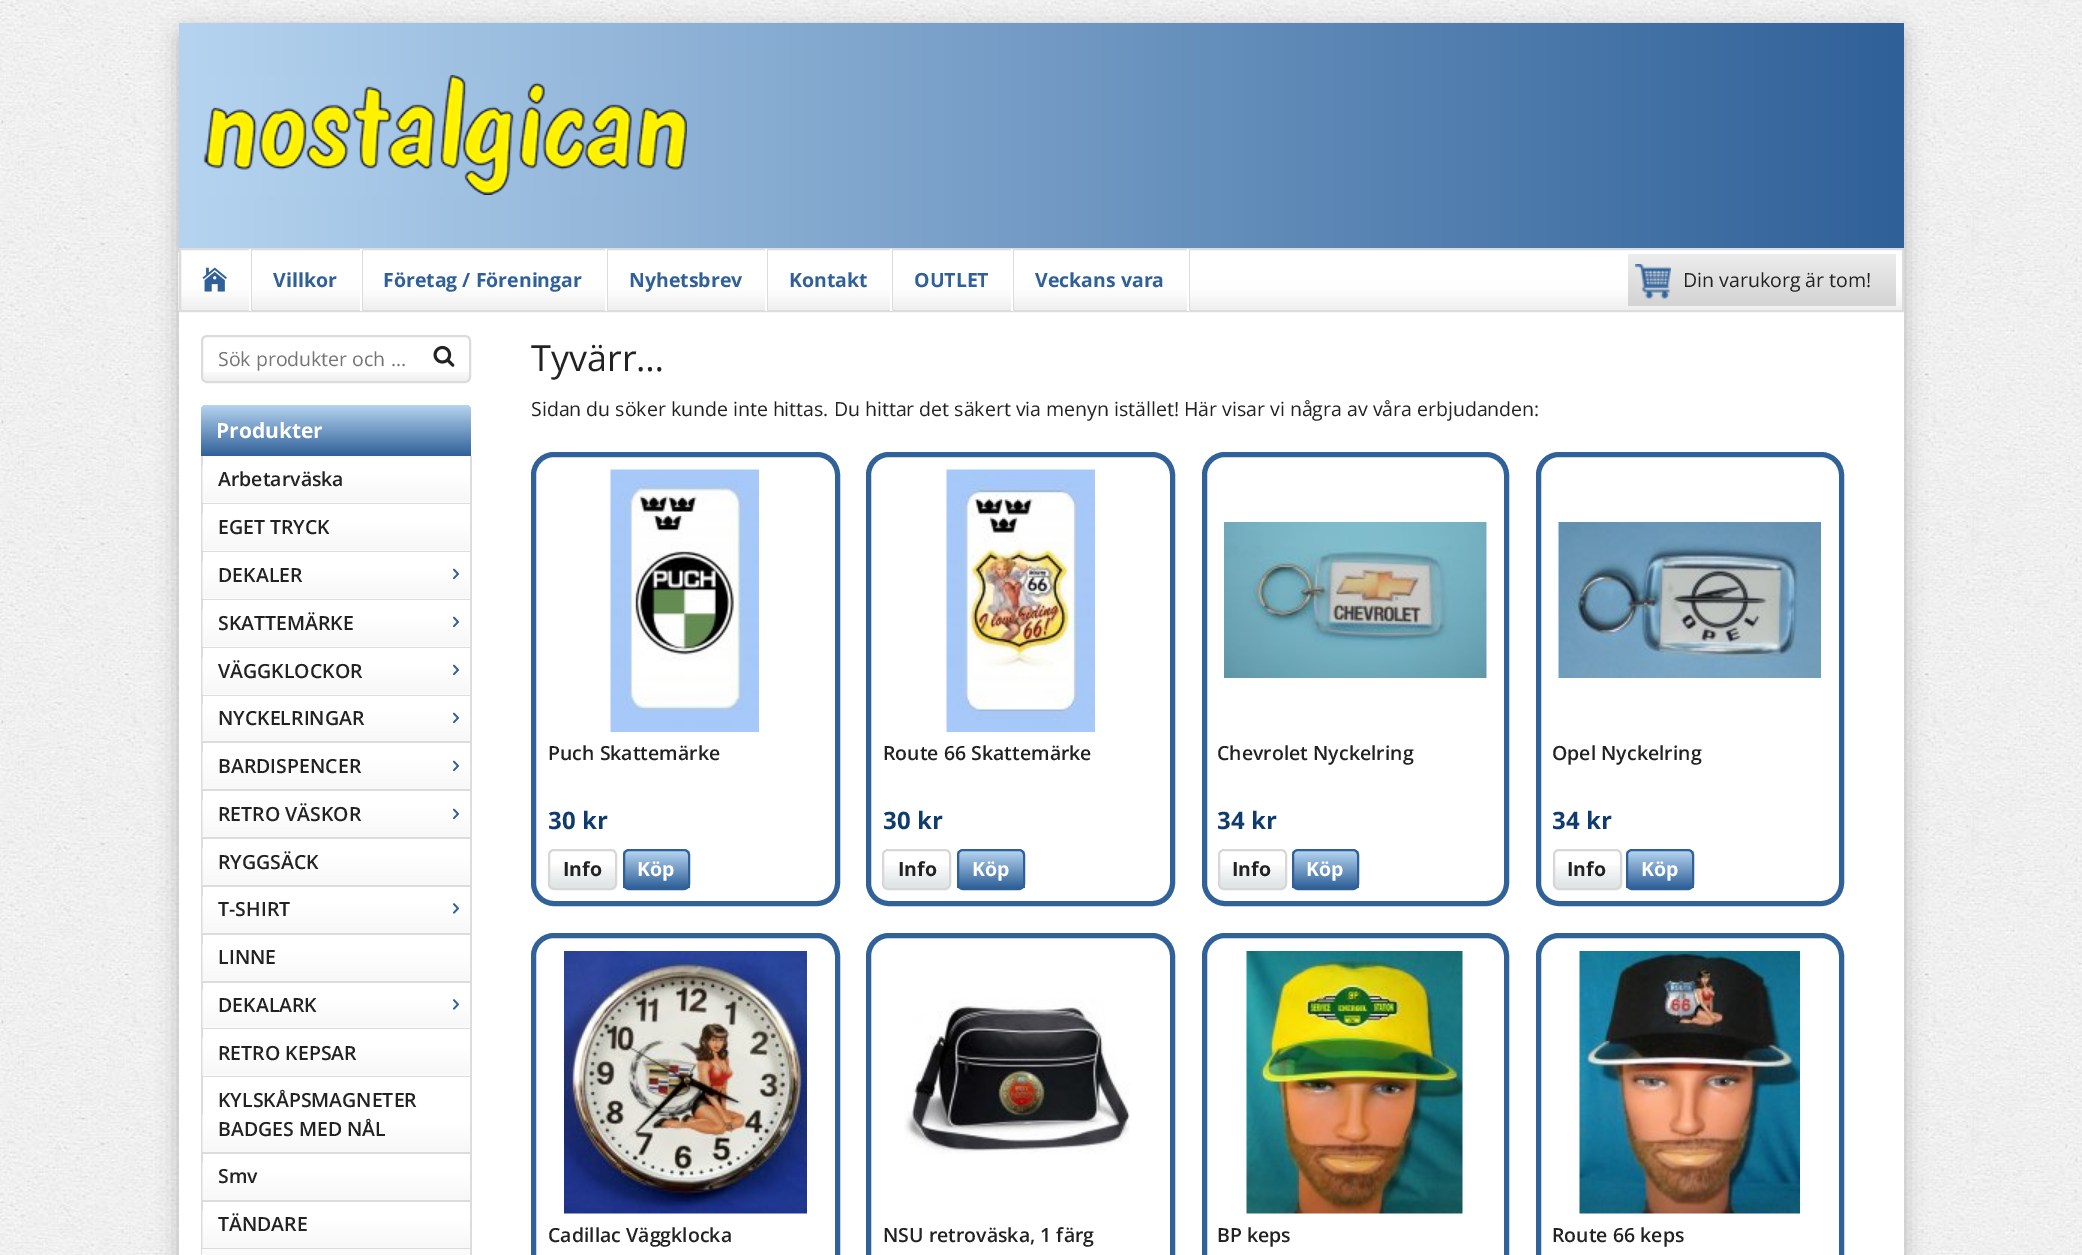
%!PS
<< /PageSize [2082 1255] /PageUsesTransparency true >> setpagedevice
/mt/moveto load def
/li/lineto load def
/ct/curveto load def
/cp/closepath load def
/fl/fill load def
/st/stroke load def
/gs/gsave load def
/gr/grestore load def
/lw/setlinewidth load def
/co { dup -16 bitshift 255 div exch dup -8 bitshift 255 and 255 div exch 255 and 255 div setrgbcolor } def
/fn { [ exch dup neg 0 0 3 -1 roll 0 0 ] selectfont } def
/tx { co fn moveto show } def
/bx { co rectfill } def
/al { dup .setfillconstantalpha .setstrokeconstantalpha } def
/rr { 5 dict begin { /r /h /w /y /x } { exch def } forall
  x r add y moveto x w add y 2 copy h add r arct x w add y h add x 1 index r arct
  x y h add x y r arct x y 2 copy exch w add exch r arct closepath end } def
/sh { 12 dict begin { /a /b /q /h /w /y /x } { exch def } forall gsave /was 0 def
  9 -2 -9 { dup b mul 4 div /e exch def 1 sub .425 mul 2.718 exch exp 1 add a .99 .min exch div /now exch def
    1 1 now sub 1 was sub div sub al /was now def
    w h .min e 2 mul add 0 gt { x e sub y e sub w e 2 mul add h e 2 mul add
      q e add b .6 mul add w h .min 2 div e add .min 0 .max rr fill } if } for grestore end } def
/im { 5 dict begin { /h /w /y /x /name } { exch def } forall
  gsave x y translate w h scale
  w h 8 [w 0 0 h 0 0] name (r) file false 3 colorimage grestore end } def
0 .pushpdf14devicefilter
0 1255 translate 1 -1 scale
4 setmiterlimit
0 0 2082 1255 16#FFFFFF bx
(media/1.raw) 0 0 2082 1255 im
16#B5B5B5 co
179 30 1725 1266 8 11 1 sh
179 250 1725 1005 16#FFFFFF bx
gs 179 23 mt 1904 23 li 1904 248 li 179 248 li cp clip newpath
<< /ShadingType 2 /ColorSpace /DeviceRGB /Coords [179 135 1904 135] /Extend [true true] /Function << /FunctionType 2 /Domain [0 1] /C0 [.71 .831 .941] /C1 [.184 .376 .596] /N 1 >> >> shfill gr
(media/2.raw) 203 75 484 120 im
(media/3.raw) 178 252 1724 59 im
16#DCDCDC co
2 lw
180 249 1723 62 rectstroke
182 310 mt 182 311 li 252 311 li 252 249 li 250 249 li 250 310 li cp fl
249 249 2 62 16#FFFFFF bx
(media/4.raw) 202 267 25 25 im
16#DCDCDC co
252 310 mt 252 311 li 363 311 li 363 249 li 362 249 li 362 310 li cp fl
360 249 2 62 16#FFFFFF bx
16#DCDCDC co
363 310 mt 363 311 li 608 311 li 608 249 li 606 249 li 606 310 li cp fl
605 249 2 62 16#FFFFFF bx
16#DCDCDC co
608 310 mt 608 311 li 768 311 li 768 249 li 766 249 li 766 310 li cp fl
765 249 2 62 16#FFFFFF bx
16#DCDCDC co
768 310 mt 768 311 li 893 311 li 893 249 li 891 249 li 891 310 li cp fl
890 249 2 62 16#FFFFFF bx
16#DCDCDC co
893 310 mt 893 311 li 1014 311 li 1014 249 li 1012 249 li 1012 310 li cp fl
1011 249 2 62 16#FFFFFF bx
16#DCDCDC co
1014 310 mt 1014 311 li 1190 311 li 1190 249 li 1188 249 li 1188 310 li cp fl
1187 249 2 62 16#FFFFFF bx
gs 1628 254 268 52 3 rr clip newpath
<< /ShadingType 2 /ColorSpace /DeviceRGB /Coords [1762 254 1762 306] /Extend [true true] /Function << /FunctionType 2 /Domain [0 1] /C0 [.929 .929 .929] /C1 [.827 .827 .827] /N 1 >> >> shfill gr
(media/5.raw) 1635 264 36 35 im
(media/6.raw) 201 372 270 9 im
16#DCDCDC co
202 336 268 46 5 rr st
(media/7.raw) 433 345 22 22 im
gs 207 405 mt 465 405 li 468.5 405 471 407.5 471 411 ct 471 456 li 201 456 li 201 411 li 201 407.5 203.5 405 207 405 ct cp clip newpath
<< /ShadingType 2 /ColorSpace /DeviceRGB /Coords [336 405 336 456] /Extend [true true] /Function << /FunctionType 2 /Domain [0 1] /C0 [.71 .831 .941] /C1 [.184 .376 .596] /N 1 >> >> shfill gr
470 456 2 799 16#DCDCDC bx
201 456 2 799 16#DCDCDC bx
(media/8.raw) 202 465 268 38 im
203 503 267 1 16#DCDCDC bx
(media/8.raw) 202 513 268 38 im
203 551 267 1 16#DCDCDC bx
(media/8.raw) 202 561 268 38 im
203 599 267 1 16#DCDCDC bx
(media/9.raw) 453 568 6 12 im
(media/8.raw) 202 609 268 38 im
203 647 267 1 16#DCDCDC bx
(media/9.raw) 453 616 6 12 im
(media/8.raw) 202 657 268 38 im
203 695 267 1 16#DCDCDC bx
(media/9.raw) 453 664 6 12 im
(media/10.raw) 202 703 268 38 im
203 741 267 2 16#DCDCDC bx
(media/11.raw) 453 712 6 12 im
(media/12.raw) 202 751 268 38 im
203 789 267 2 16#DCDCDC bx
(media/11.raw) 453 760 6 12 im
(media/13.raw) 202 799 268 38 im
203 837 267 2 16#DCDCDC bx
(media/14.raw) 453 808 6 12 im
(media/13.raw) 202 847 268 38 im
203 885 267 2 16#DCDCDC bx
(media/13.raw) 202 895 268 38 im
203 933 267 2 16#DCDCDC bx
(media/15.raw) 453 903 6 11 im
(media/13.raw) 202 943 268 38 im
203 981 267 2 16#DCDCDC bx
(media/8.raw) 202 990 268 38 im
203 1028 267 1 16#DCDCDC bx
(media/16.raw) 453 999 6 11 im
(media/8.raw) 202 1038 268 38 im
203 1076 267 1 16#DCDCDC bx
(media/17.raw) 202 1114 268 38 im
203 1152 267 2 16#DCDCDC bx
(media/13.raw) 202 1162 268 38 im
203 1200 267 2 16#DCDCDC bx
(media/13.raw) 202 1210 268 38 im
203 1248 267 1 16#DCDCDC bx
202 1249 268 6 16#FBFBFB bx
16#306198 co
5 lw
533.5 454.5 304 449 20.5 rr st
(media/18.raw) 610 469 149 263 im
(media/19.raw) 547 865 70 23 im
16#D7D7D7 co
2 lw
549 850 67 39 5 rr st
gs
623 849 67 41 6 rr clip newpath
gs 623 851 mt 690 851 li 690 888 li 623 888 li cp clip newpath
<< /ShadingType 2 /ColorSpace /DeviceRGB /Coords [656 851 656 888] /Extend [true true] /Function << /FunctionType 2 /Domain [0 1] /C0 [.71 .831 .941] /C1 [.184 .376 .596] /N 1 >> >> shfill gr
gr
16#2F6098 co
624 850 65 39 5 rr st
16#306198 co
5 lw
868.5 454.5 304 449 20.5 rr st
(media/20.raw) 946 469 149 263 im
(media/21.raw) 882 865 69 23 im
16#D7D7D7 co
2 lw
883 850 67 39 5 rr st
gs
957 849 68 41 6 rr clip newpath
gs 957 851 mt 1025 851 li 1025 888 li 957 888 li cp clip newpath
<< /ShadingType 2 /ColorSpace /DeviceRGB /Coords [991 851 991 888] /Extend [true true] /Function << /FunctionType 2 /Domain [0 1] /C0 [.71 .831 .941] /C1 [.184 .376 .596] /N 1 >> >> shfill gr
gr
16#2F6098 co
958 850 66 39 5 rr st
16#306198 co
5 lw
1204.5 454.5 302 449 20.5 rr st
(media/22.raw) 1224 522 263 156 im
(media/23.raw) 1218 865 69 23 im
16#D7D7D7 co
2 lw
1219 850 67 39 5 rr st
gs
1292 849 67 41 6 rr clip newpath
gs 1292 851 mt 1359 851 li 1359 888 li 1292 888 li cp clip newpath
<< /ShadingType 2 /ColorSpace /DeviceRGB /Coords [1325 851 1325 888] /Extend [true true] /Function << /FunctionType 2 /Domain [0 1] /C0 [.71 .831 .941] /C1 [.184 .376 .596] /N 1 >> >> shfill gr
gr
16#2F6098 co
1293 850 65 39 5 rr st
16#306198 co
5 lw
1538.5 454.5 303 449 20.5 rr st
(media/24.raw) 1558 522 263 156 im
(media/25.raw) 1552 865 70 23 im
16#D7D7D7 co
2 lw
1554 850 67 39 5 rr st
gs
1626 849 68 41 6 rr clip newpath
gs 1626 851 mt 1694 851 li 1694 888 li 1626 888 li cp clip newpath
<< /ShadingType 2 /ColorSpace /DeviceRGB /Coords [1660 851 1660 888] /Extend [true true] /Function << /FunctionType 2 /Domain [0 1] /C0 [.71 .831 .941] /C1 [.184 .376 .596] /N 1 >> >> shfill gr
gr
16#2F6098 co
1627 850 66 39 5 rr st
16#306198 co
5 lw
533.5 935.5 304 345 20.5 rr st
(media/26.raw) 564 951 243 263 im
868.5 935.5 304 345 20.5 rr st
(media/27.raw) 904 999 226 155 im
1204.5 935.5 302 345 20.5 rr st
(media/28.raw) 1246 951 217 263 im
1538.5 935.5 303 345 20.5 rr st
(media/29.raw) 1579 951 221 263 im
(Villkor) 273 287 /OpenSans-Bold 19.5 16#2F6098 tx
(Företag / Föreningar) 383 287 /OpenSans-Bold 19.5 16#2F6098 tx
(Nyhetsbrev) 629 287 /OpenSans-Bold 19.5 16#2F6098 tx
(Kontakt) 789 287 /OpenSans-Bold 19.5 16#2F6098 tx
(OUTLET) 914 287 /OpenSans-Bold 19.5 16#2F6098 tx
(Veckans vara) 1035 287 /OpenSans-Bold 19.5 16#2F6098 tx
(Din varukorg är tom!) 1683 287 /OpenSans-Regular 19.5 16#222222 tx
(Sök produkter och …) 218 366 /OpenSans-Regular 19.5 16#757575 tx
(Produkter) 216 438 /OpenSans-Bold 21 16#FFFFFF tx
(Arbetarväska) 218 486 /OpenSans-SemiBold 19.5 16#222222 tx
(EGET TRYCK) 218 534 /OpenSans-SemiBold 19.5 16#222222 tx
(DEKALER) 218 582 /OpenSans-SemiBold 19.5 16#222222 tx
(SKATTEMÄRKE) 218 630 /OpenSans-SemiBold 19.5 16#222222 tx
(VÄGGKLOCKOR) 218 678 /OpenSans-SemiBold 19.5 16#222222 tx
(NYCKELRINGAR) 218 725 /OpenSans-SemiBold 19.5 16#222222 tx
(BARDISPENCER) 218 773 /OpenSans-SemiBold 19.5 16#222222 tx
(RETRO VÄSKOR) 218 821 /OpenSans-SemiBold 19.5 16#222222 tx
(RYGGSÄCK) 218 869 /OpenSans-SemiBold 19.5 16#222222 tx
(T-SHIRT) 218 916 /OpenSans-SemiBold 19.5 16#222222 tx
(LINNE) 218 964 /OpenSans-SemiBold 19.5 16#222222 tx
(DEKALARK) 218 1012 /OpenSans-SemiBold 19.5 16#222222 tx
(RETRO KEPSAR) 218 1060 /OpenSans-SemiBold 19.5 16#222222 tx
(KYLSKÅPSMAGNETER) 218 1107 /OpenSans-SemiBold 19.5 16#222222 tx
(BADGES MED NÅL) 218 1136 /OpenSans-SemiBold 19.5 16#222222 tx
(Smv) 218 1183 /OpenSans-SemiBold 19.5 16#222222 tx
(TÄNDARE) 218 1231 /OpenSans-SemiBold 19.5 16#222222 tx
(Tyvärr…) 531 371 /OpenSans-Regular 36 16#222222 tx
(Sidan du söker kunde inte hittas. Du hittar det säkert via menyn istället! Här visar vi några av våra erbjudanden:) 531 416 /OpenSans-Regular 19.5 16#222222 tx
(Puch Skattemärke) 548 760 /OpenSans-SemiBold 19.5 16#222222 tx
(30 kr) 548 829 /OpenSans-Bold 24 16#0F3B6D tx
(Info) 563 876 /OpenSans-Bold 19.5 16#222222 tx
(Köp) 637 876 /OpenSans-Bold 19.5 16#FFFFFF tx
(Route 66 Skattemärke) 883 760 /OpenSans-SemiBold 19.5 16#222222 tx
(30 kr) 883 829 /OpenSans-Bold 24 16#0F3B6D tx
(Info) 898 876 /OpenSans-Bold 19.5 16#222222 tx
(Köp) 972 876 /OpenSans-Bold 19.5 16#FFFFFF tx
(Chevrolet Nyckelring) 1217 760 /OpenSans-SemiBold 19.5 16#222222 tx
(34 kr) 1217 829 /OpenSans-Bold 24 16#0F3B6D tx
(Info) 1232 876 /OpenSans-Bold 19.5 16#222222 tx
(Köp) 1306 876 /OpenSans-Bold 19.5 16#FFFFFF tx
(Opel Nyckelring) 1552 760 /OpenSans-SemiBold 19.5 16#222222 tx
(34 kr) 1552 829 /OpenSans-Bold 24 16#0F3B6D tx
(Info) 1567 876 /OpenSans-Bold 19.5 16#222222 tx
(Köp) 1641 876 /OpenSans-Bold 19.5 16#FFFFFF tx
(Cadillac Väggklocka) 548 1242 /OpenSans-SemiBold 19.5 16#222222 tx
(NSU retroväska, 1 färg) 883 1242 /OpenSans-SemiBold 19.5 16#222222 tx
(BP keps) 1217 1242 /OpenSans-SemiBold 19.5 16#222222 tx
(Route 66 keps) 1552 1242 /OpenSans-SemiBold 19.5 16#222222 tx
.poppdf14devicefilter showpage
